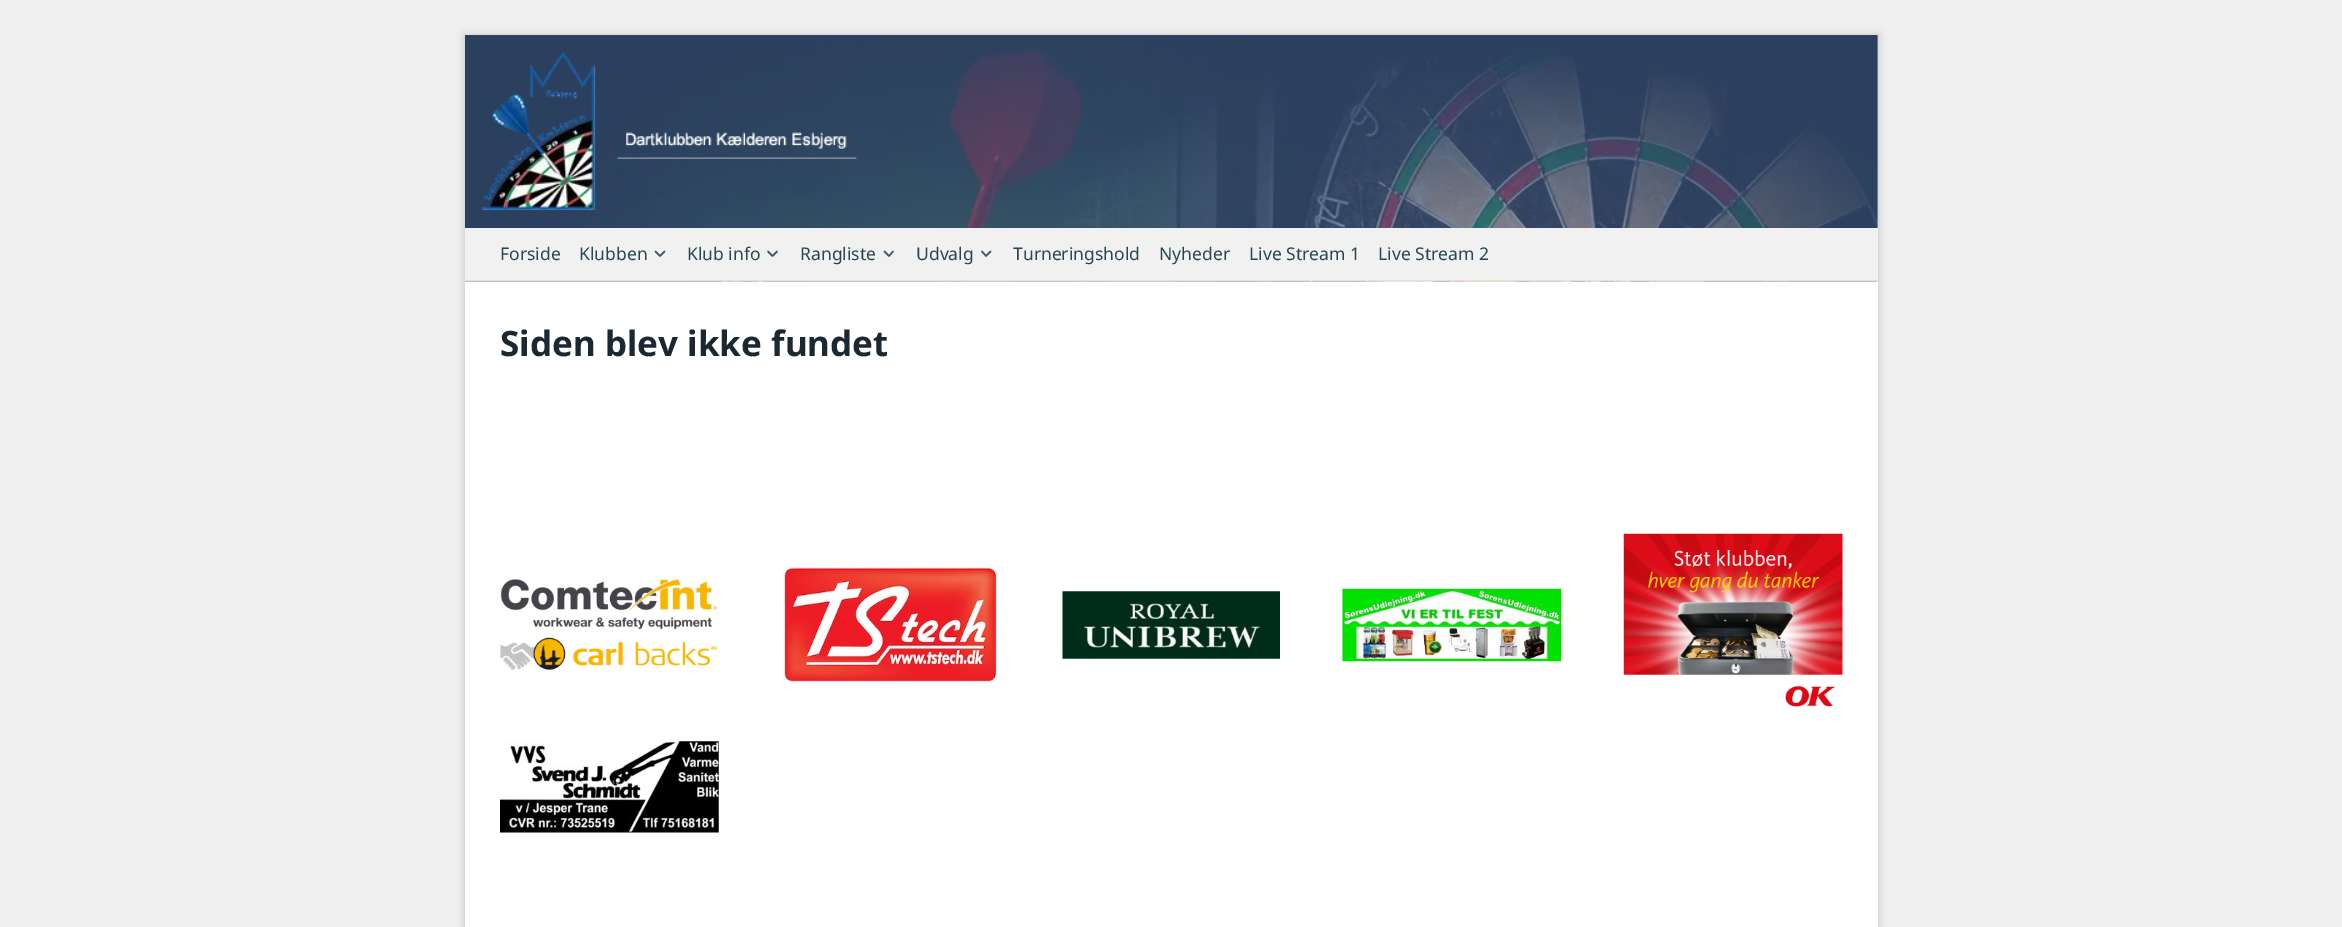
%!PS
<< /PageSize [2342 927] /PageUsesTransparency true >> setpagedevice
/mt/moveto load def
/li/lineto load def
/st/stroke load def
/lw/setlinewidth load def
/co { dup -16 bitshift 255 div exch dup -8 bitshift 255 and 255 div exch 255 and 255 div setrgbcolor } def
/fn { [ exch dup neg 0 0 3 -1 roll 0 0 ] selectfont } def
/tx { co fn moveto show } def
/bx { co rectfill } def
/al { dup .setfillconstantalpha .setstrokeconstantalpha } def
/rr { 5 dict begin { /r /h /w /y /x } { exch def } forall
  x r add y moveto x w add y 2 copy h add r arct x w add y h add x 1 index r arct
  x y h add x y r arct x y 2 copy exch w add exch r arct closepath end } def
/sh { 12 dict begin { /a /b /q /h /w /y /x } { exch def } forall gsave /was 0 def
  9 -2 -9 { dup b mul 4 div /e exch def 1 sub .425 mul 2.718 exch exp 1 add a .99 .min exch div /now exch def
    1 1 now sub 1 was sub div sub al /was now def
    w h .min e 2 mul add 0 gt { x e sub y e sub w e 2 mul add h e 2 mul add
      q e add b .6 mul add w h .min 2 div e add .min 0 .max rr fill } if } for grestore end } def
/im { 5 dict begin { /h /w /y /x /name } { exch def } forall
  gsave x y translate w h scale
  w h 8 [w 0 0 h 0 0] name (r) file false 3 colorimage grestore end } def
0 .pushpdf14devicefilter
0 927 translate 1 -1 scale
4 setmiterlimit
0 0 2342 927 16#F0F0F0 bx
16#333333 co
463 34 1417 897 0 4 .19 sh
465 35 1413 892 16#FFFFFF bx
(media/1.raw) 465 35 1413 247 im
0.5 al
465 35 1413 193 16#567FBD bx
1 al
(media/2.raw) 482 52 375 158 im
465 228 1413 52 16#F1F1F1 bx
465 280 1413 1 16#E1E1E1 bx
16#415462 co
1.5 lw
1 setlinecap
1 setlinejoin
655.5 251.5 mt 660 256 li 664.5 251.5 li st
768 251.5 mt 772.5 256 li 777 251.5 li st
884.5 251.5 mt 889 256 li 893 251.5 li st
982 251.5 mt 986 256 li 990.5 251.5 li st
(media/3.raw) 500 579 218 91 im
(media/4.raw) 781 564 216 121 im
(media/5.raw) 1062 591 218 68 im
(media/6.raw) 1342 588 220 74 im
(media/7.raw) 1623 533 220 174 im
(media/8.raw) 500 741 219 92 im
(Forside) 500 260 /NotoSans-Regular 17.5 16#264653 tx
(Klubben) 579 260 /NotoSans-Regular 17.5 16#264653 tx
(Klub info) 687 260 /NotoSans-Regular 17.5 16#264653 tx
(Rangliste) 800 260 /NotoSans-Regular 17.5 16#264653 tx
(Udvalg) 916 260 /NotoSans-Regular 17.5 16#264653 tx
(Turneringshold) 1013 260 /NotoSans-Regular 17.5 16#264653 tx
(Nyheder) 1159 260 /NotoSans-Regular 17.5 16#264653 tx
(Live Stream 1) 1249 260 /NotoSans-Regular 17.5 16#264653 tx
(Live Stream 2) 1378 260 /NotoSans-Regular 17.5 16#264653 tx
(Siden blev ikke fundet) 500 356 /NotoSans-Bold 35 16#1B2832 tx
.poppdf14devicefilter showpage
